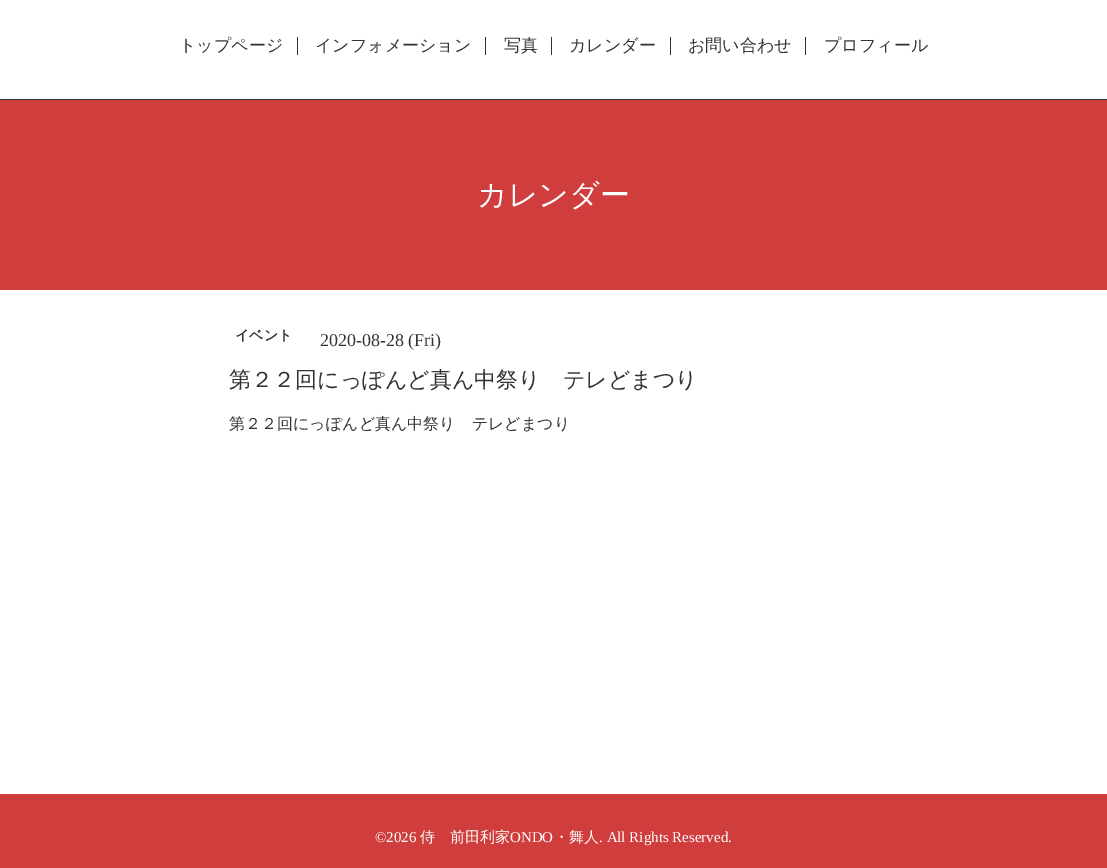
%!PS
<< /PageSize [1107 868] >> setpagedevice
/co { dup -16 bitshift 255 div exch dup -8 bitshift 255 and 255 div exch 255 and 255 div setrgbcolor } def
/fn { [ exch dup neg 0 0 3 -1 roll 0 0 ] selectfont } def
/tx { co fn moveto show } def
/bx { co rectfill } def
0 868 translate 1 -1 scale
4 setmiterlimit
0 0 1107 868 16#FFFFFF bx
0 99 1107 1 16#333333 bx
297 37 1 18 16#333333 bx
485 37 1 18 16#333333 bx
551 37 1 18 16#333333 bx
670 37 1 18 16#333333 bx
805 37 1 18 16#333333 bx
0 100 1107 190 16#CF3D3D bx
0 794 1107 74 16#CF3D3D bx
(トップページ) 179 51 /WenQuanYiZenHei-Medium 17 16#333333 tx
(インフォメーション) 315 51 /WenQuanYiZenHei-Medium 17 16#333333 tx
(写真) 504 51 /WenQuanYiZenHei-Medium 17 16#333333 tx
(カレンダー) 569 51 /WenQuanYiZenHei-Medium 17 16#333333 tx
(お問い合わせ) 688 51 /WenQuanYiZenHei-Medium 17 16#333333 tx
(プロフィール) 824 51 /WenQuanYiZenHei-Medium 17 16#333333 tx
(カレンダー) 477 205 /WenQuanYiZenHei-Medium 30 16#FFFFFF tx
(イベント) 235 340 /WenQuanYiZenHei-Bold 14 16#333333 tx
(2020-08-28 \(Fri\)) 320 346 /LiberationSerif-Regular 18 16#333333 tx
(第２２回にっぽんど真ん中祭り　テレどまつり) 229 387 /WenQuanYiZenHei-Medium 22 16#333333 tx
(第２２回にっぽんど真ん中祭り　テレどまつり) 229 429 /WenQuanYiZenHei-Medium 16 16#333333 tx
(©2026) 375 842 /LiberationSerif-Regular 15 16#FFFFFF tx
(侍　前田利家) 420 842 /WenQuanYiZenHei-Medium 15 16#FFFFFF tx
(ONDO) 510 842 /LiberationSerif-Regular 15 16#FFFFFF tx
(・舞人) 554 842 /WenQuanYiZenHei-Medium 15 16#FFFFFF tx
(. All Rights Reserved.) 599 842 /LiberationSerif-Regular 15 16#FFFFFF tx
showpage
